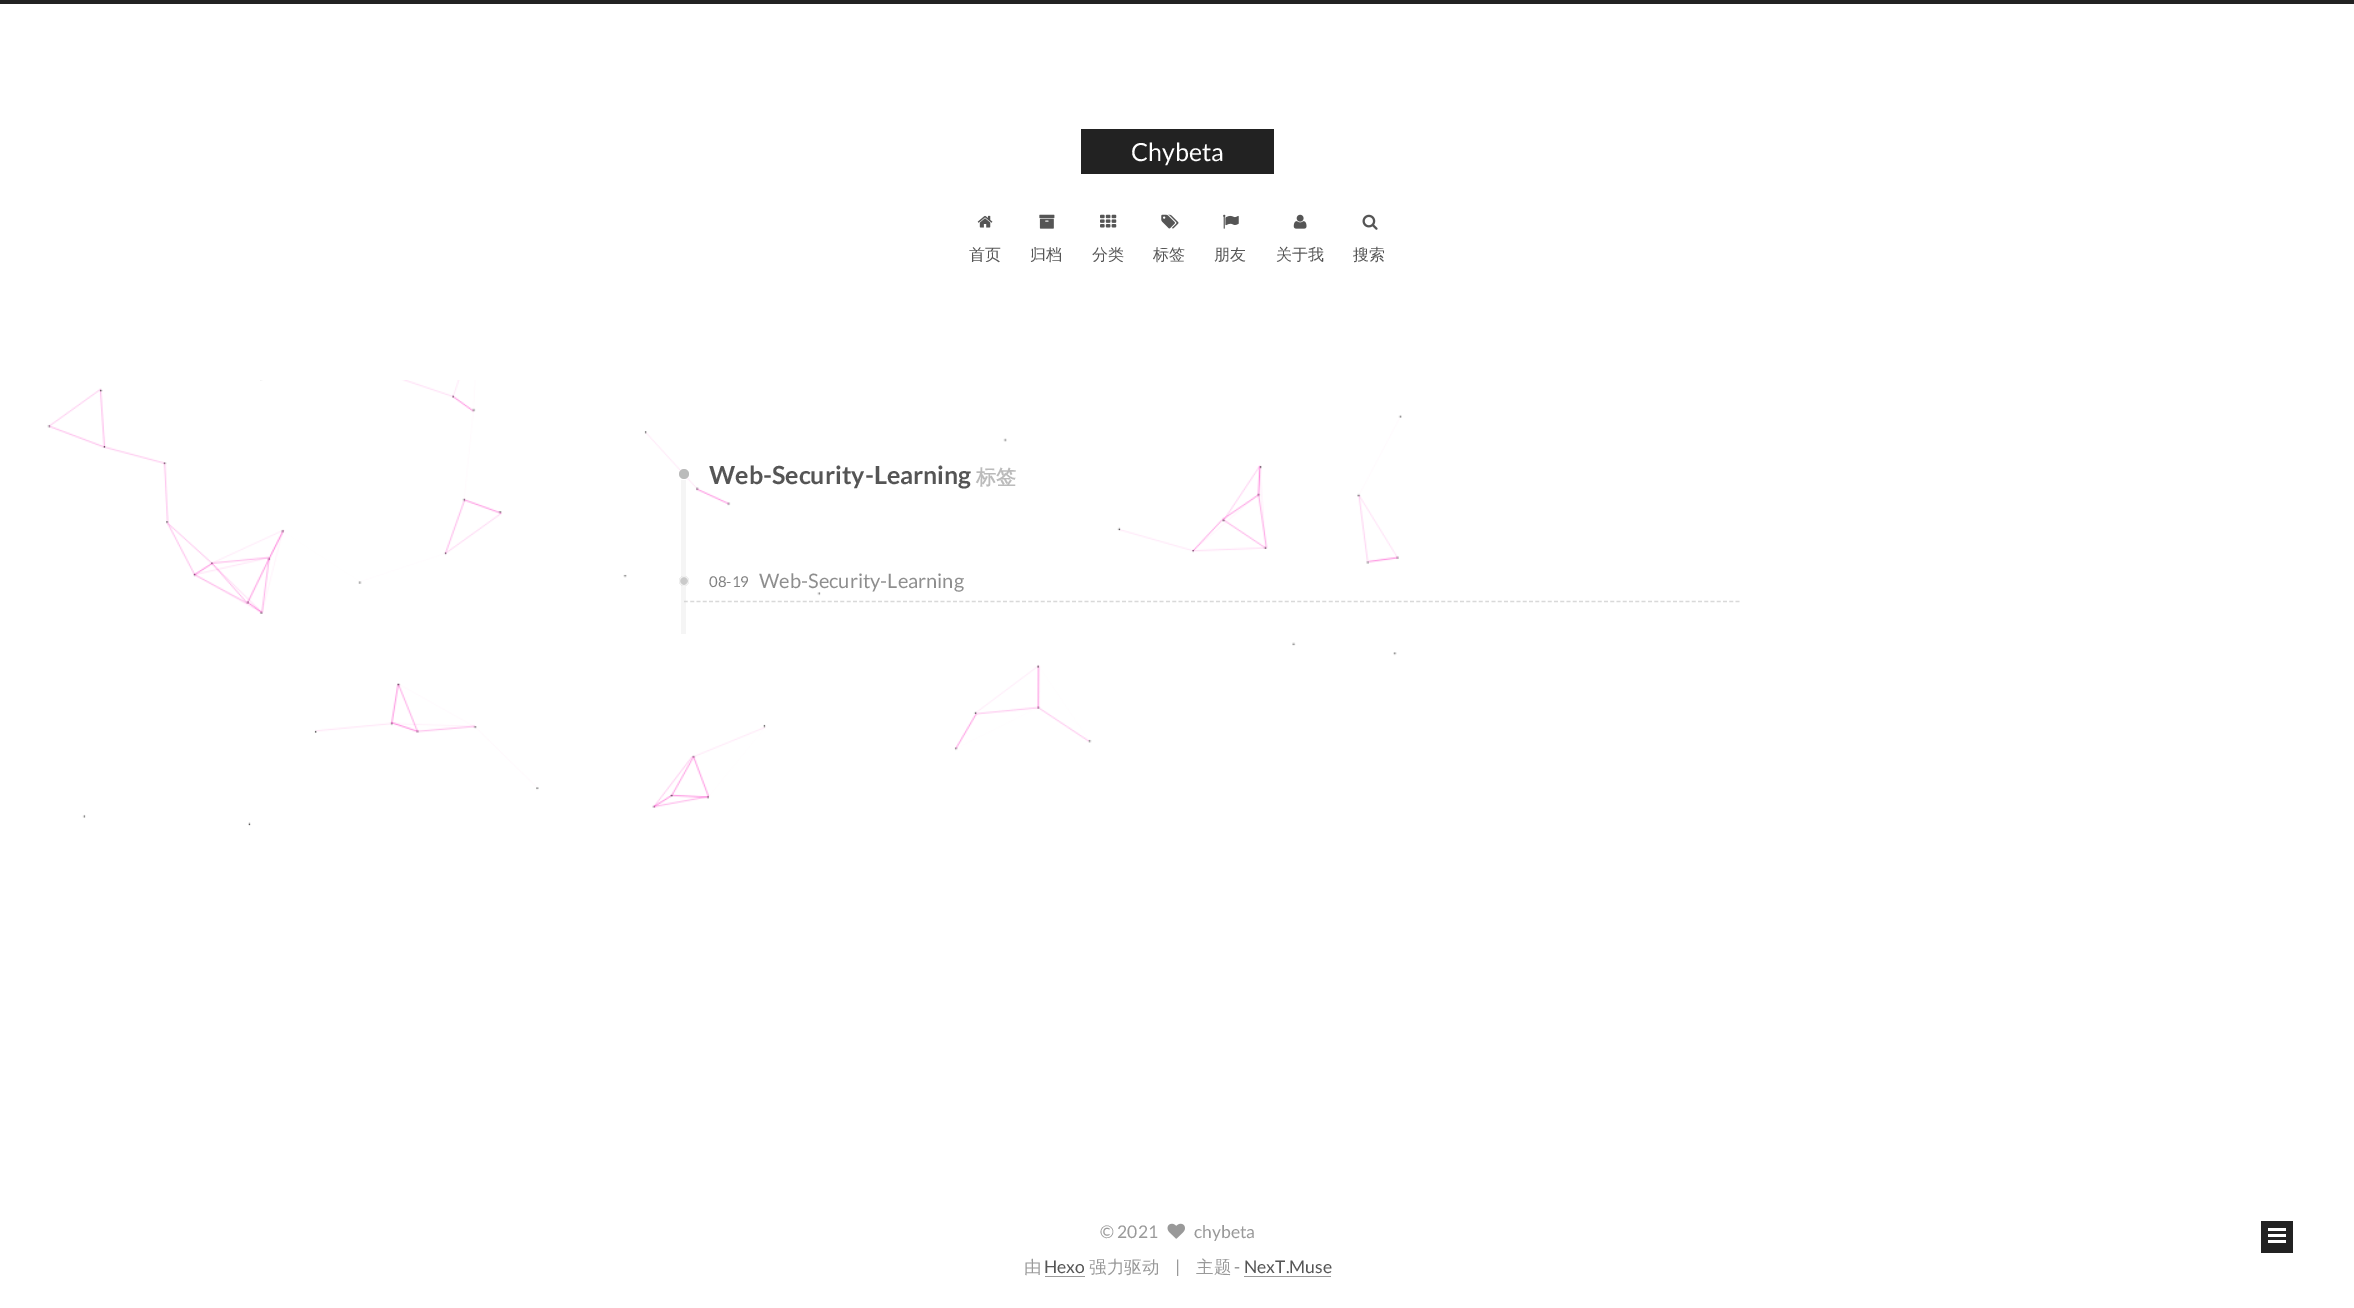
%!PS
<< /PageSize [2354 1308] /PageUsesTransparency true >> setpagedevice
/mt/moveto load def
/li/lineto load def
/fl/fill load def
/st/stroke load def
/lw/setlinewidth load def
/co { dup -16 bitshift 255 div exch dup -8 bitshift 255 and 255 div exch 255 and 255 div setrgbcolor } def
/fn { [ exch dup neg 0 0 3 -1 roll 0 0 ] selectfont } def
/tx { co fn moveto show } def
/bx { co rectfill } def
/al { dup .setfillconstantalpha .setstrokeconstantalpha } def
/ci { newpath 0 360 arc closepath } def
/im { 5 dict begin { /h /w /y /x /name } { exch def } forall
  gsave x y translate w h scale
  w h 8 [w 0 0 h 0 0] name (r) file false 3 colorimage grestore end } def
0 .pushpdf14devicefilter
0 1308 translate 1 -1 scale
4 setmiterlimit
0 0 2354 1308 16#FFFFFF bx
0 0 2354 4 16#222222 bx
1081 129 193 45 16#222222 bx
(media/1.raw) 977 215 16 13 im
(media/2.raw) 1039 214 16 15 im
(media/3.raw) 1100 214 17 14 im
(media/4.raw) 1161 214 18 15 im
(media/5.raw) 1223 214 16 15 im
(media/6.raw) 1293 214 14 15 im
(media/7.raw) 1362 214 16 16 im
(media/9.raw) 47 380 1355 446 im
16#BBBBBB co
684 474 5 ci fl
681 480 5 154 16#F5F5F5 bx
0.74 al
16#CCCCCC co
1.2 lw
[3.75 2.51] 0 setdash
684 601.5 mt 1740 601.5 li st
16#BBBBBB co
684 581 5 ci fl
16#FFFFFF co
1 lw
[] 0 setdash
684 581 4.5 ci st
1 al
2261 1221 32 32 16#222222 bx
2268 1228 18 3 16#FFFFFF bx
2268 1234 18 3 16#FFFFFF bx
2268 1240 18 3 16#FFFFFF bx
(media/8.raw) 1167 1223 18 16 im
1045 1276 40 1 16#999999 bx
1244 1276 87 1 16#999999 bx
(Chybeta) 1131 161 /Lato-Regular 25 16#FFFFFF tx
(首页) 969 260 /WenQuanYiZenHei-Medium 16 16#555555 tx
(归档) 1030 260 /WenQuanYiZenHei-Medium 16 16#555555 tx
(分类) 1092 260 /WenQuanYiZenHei-Medium 16 16#555555 tx
(标签) 1153 260 /WenQuanYiZenHei-Medium 16 16#555555 tx
(朋友) 1214 260 /WenQuanYiZenHei-Medium 16 16#555555 tx
(关于我) 1276 260 /WenQuanYiZenHei-Medium 16 16#555555 tx
(搜索) 1353 260 /WenQuanYiZenHei-Medium 16 16#555555 tx
(Web-Security-Learning) 709 484 /Lato-Bold 25 16#555555 tx
(标签) 976 484 /WenQuanYiZenHei-Bold 20 16#BBBBBB tx
(08-19) 709 587 /Lato-Regular 15 16#818181 tx
(Web-Security-Learning) 759 588 /Lato-Regular 20 16#8E8E8E tx
(© 2021) 1100 1238 /Lato-Regular 17.5 16#999999 tx
(chybeta) 1194 1238 /Lato-Regular 17.5 16#999999 tx
(由) 1024 1273 /WenQuanYiZenHei-Medium 17.5 16#999999 tx
(Hexo) 1044 1273 /Lato-Regular 17.5 16#555555 tx
(强力驱动) 1089 1273 /WenQuanYiZenHei-Medium 17.5 16#999999 tx
(|) 1175 1273 /Lato-Regular 17.5 16#999999 tx
(主题) 1196 1273 /WenQuanYiZenHei-Medium 17.5 16#999999 tx
(-) 1234 1273 /Lato-Regular 17.5 16#999999 tx
(NexT.Muse) 1244 1273 /Lato-Regular 17.5 16#555555 tx
.poppdf14devicefilter showpage
